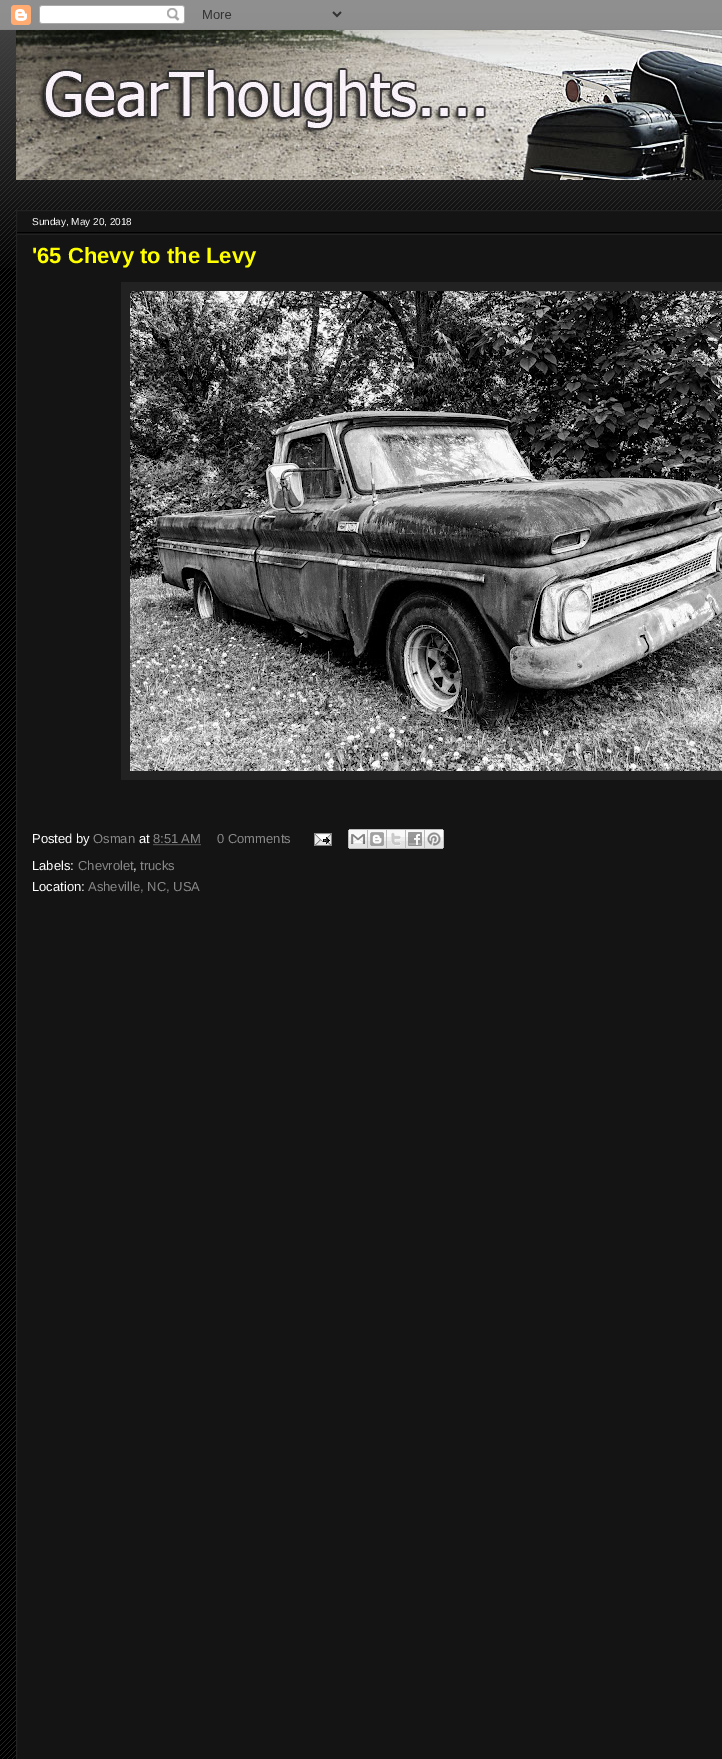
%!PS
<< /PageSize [722 1759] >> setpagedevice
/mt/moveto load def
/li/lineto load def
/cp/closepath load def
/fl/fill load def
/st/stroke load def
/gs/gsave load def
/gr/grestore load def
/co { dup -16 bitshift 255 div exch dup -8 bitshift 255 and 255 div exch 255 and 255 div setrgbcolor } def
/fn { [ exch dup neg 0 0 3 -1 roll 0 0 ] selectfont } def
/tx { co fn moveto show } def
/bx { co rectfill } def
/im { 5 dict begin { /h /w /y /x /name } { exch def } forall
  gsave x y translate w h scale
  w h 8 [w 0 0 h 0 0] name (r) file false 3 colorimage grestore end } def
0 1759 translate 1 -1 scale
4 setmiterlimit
0 0 722 1759 16#000000 bx
(media/1.raw) 0 13 722 1746 im
(media/2.raw) 0 0 722 268 im
(media/3.raw) 0 0 722 30 im
(media/4.raw) 16 30 706 150 im
16#141414 co
16.5 210.5 mt 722.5 210.5 li 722.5 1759.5 li 16.5 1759.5 li cp gs fl gr
16#222222 co
st
17 232 705 1 16#000000 bx
17 234 705 1 16#222222 bx
121 282 601 498 16#222222 bx
(media/5.raw) 130 291 592 480 im
16#888888 co
[1 1] 0 setdash
153.5 844.5 mt 201 844.5 li st
(media/6.raw) 314 833 18 13 im
(media/7.raw) 348 829 20 20 im
(media/8.raw) 368 829 19 20 im
(media/9.raw) 387 829 19 20 im
(media/10.raw) 406 829 19 20 im
(media/11.raw) 425 829 19 20 im
(Sunday, May 20, 2018) 32 225 /LiberationSans-Regular 10 16#FFFFFF tx
('65 Chevy to the Levy) 32 263 /LiberationSans-Bold 22 16#FFFF00 tx
(Posted by) 32 843 /LiberationSans-Regular 13 16#FFFFFF tx
(Osman) 93 843 /LiberationSans-Regular 13 16#888888 tx
(at) 139 843 /LiberationSans-Regular 13 16#FFFFFF tx
(8:51 AM) 153 843 /LiberationSans-Regular 13 16#888888 tx
(0 Comments) 217 843 /LiberationSans-Regular 13 16#888888 tx
(Labels:) 32 870 /LiberationSans-Regular 13 16#FFFFFF tx
(Chevrolet) 78 870 /LiberationSans-Regular 13 16#888888 tx
(,) 133 870 /LiberationSans-Regular 13 16#FFFFFF tx
(trucks) 140 870 /LiberationSans-Regular 13 16#888888 tx
(Location:) 32 891 /LiberationSans-Regular 13 16#FFFFFF tx
(Asheville, NC, USA) 88 891 /LiberationSans-Regular 13 16#888888 tx
showpage
